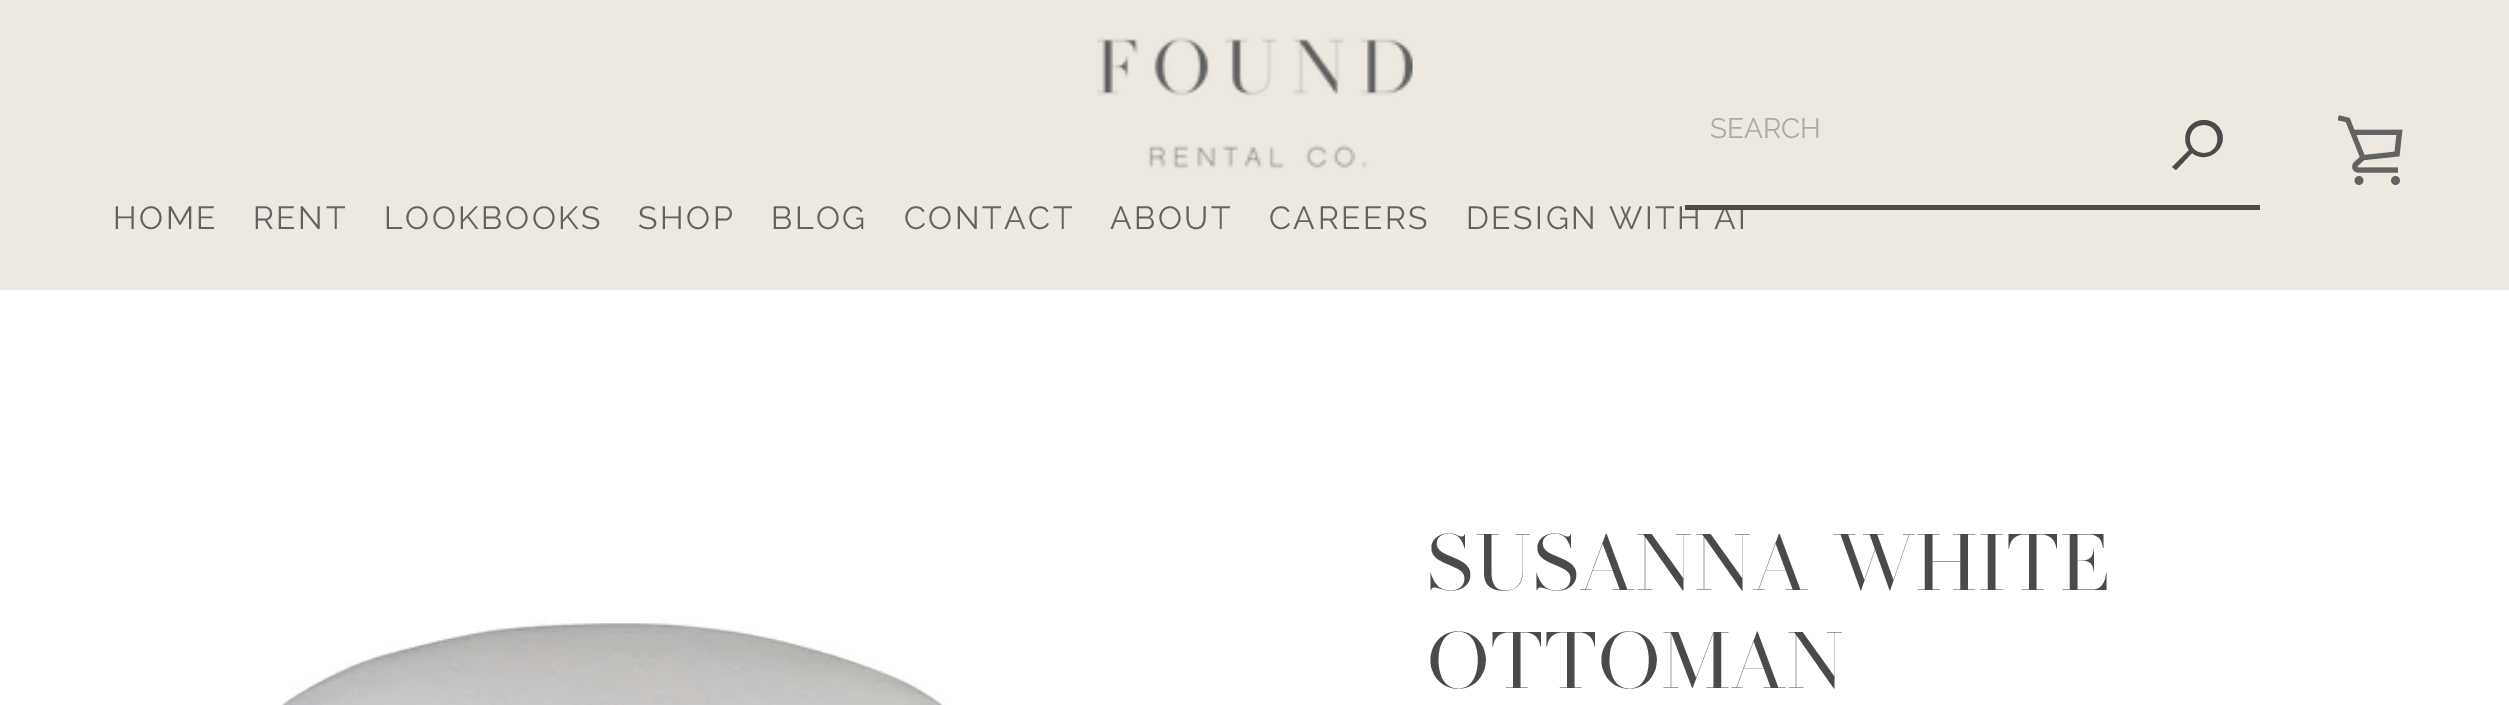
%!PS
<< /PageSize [2509 705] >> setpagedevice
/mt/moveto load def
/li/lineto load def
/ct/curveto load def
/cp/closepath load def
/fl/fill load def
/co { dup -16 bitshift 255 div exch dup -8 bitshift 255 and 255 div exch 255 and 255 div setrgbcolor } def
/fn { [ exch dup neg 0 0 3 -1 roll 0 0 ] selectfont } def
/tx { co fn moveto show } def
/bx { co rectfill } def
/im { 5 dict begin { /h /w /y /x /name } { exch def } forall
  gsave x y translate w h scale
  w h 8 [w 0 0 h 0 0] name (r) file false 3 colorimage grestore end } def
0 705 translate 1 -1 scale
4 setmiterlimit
0 0 2509 705 16#FFFFFF bx
0 0 2509 290 16#EDE9E1 bx
(media/1.raw) 1097 37 316 132 im
16#4A4A4A co
2204 120 mt 2188 120 2180 138 2189 150 ct 2172 167 li 2176 170 li 2192 153 li 2210 167 2234 142 2217 125 ct 2214 122 2209 120 2204 120 ct cp 2204 153 mt 2185 153 2185 125 2204 125 ct 2222 125 2222 153 2204 153 ct cp fl
(media/2.raw) 2338 115 65 70 im
(media/3.raw) 281 620 665 85 im
(SEARCH) 1710 138 /Raleway-Regular 28 16#ACA9A5 tx
/Raleway-Regular 32 fn
16#626262 co
113 229 mt 2.5 0 (HOME) ashow
253 229 mt 2.5 0 (RENT) ashow
384 229 mt 2.5 0 (LOOKBOOKS) ashow
638 229 mt 2.5 0 (SHOP) ashow
771 229 mt 2.5 0 (BLOG) ashow
904 229 mt 2.5 0 (CONTACT) ashow
1110 229 mt 2.5 0 (ABOUT) ashow
1269 229 mt 2.5 0 (CAREERS) ashow
1466 229 mt 2.5 0 (DESIGN WITH AI) ashow
1685 205 575 5 16#4A4A4A bx
/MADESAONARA-Regular 80 fn
1428 590 mt 2.5 0 (SUSANNA WHITE) ashow
1428 688 mt 2.5 0 (OTTOMAN) ashow
showpage
